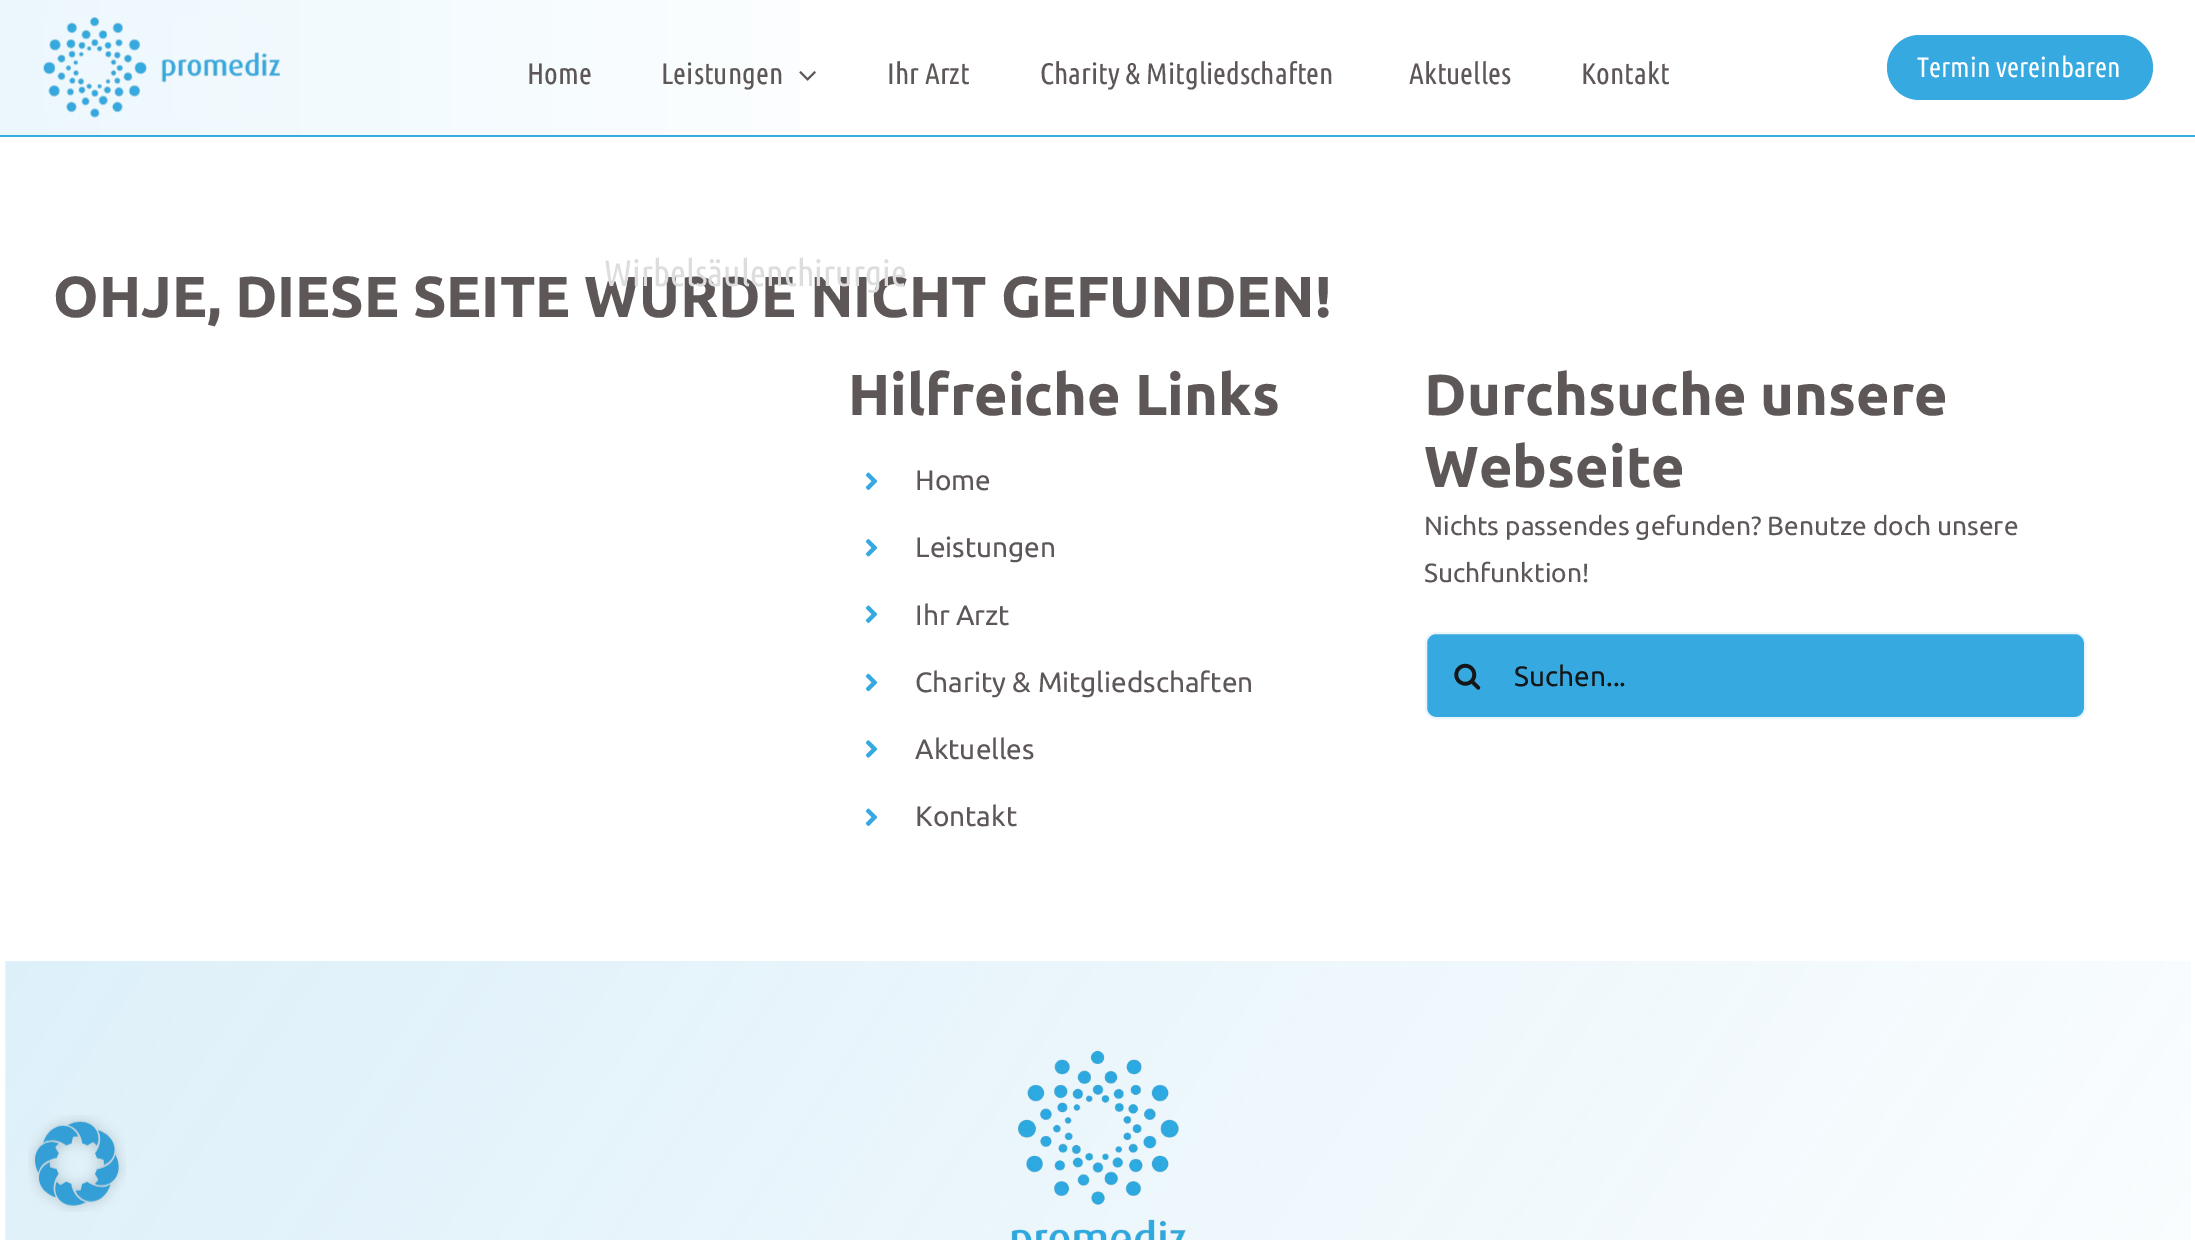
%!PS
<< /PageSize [2195 1240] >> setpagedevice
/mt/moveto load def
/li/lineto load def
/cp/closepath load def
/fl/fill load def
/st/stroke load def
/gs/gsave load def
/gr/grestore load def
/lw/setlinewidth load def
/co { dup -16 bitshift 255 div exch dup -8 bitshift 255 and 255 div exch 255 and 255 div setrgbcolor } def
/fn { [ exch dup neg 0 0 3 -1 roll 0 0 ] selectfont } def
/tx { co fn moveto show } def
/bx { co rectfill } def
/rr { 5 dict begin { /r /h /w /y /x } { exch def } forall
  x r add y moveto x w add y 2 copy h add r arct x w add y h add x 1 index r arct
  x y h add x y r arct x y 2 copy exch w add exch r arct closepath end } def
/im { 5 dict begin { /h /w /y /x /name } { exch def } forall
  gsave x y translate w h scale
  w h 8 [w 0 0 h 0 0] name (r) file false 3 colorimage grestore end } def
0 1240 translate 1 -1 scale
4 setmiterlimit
0 0 2195 1240 16#FFFFFF bx
gs 0 0 mt 801 0 li 801 135 li 0 135 li cp clip newpath
<< /ShadingType 2 /ColorSpace /DeviceRGB /Coords [0 67 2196 67] /Extend [true true] /Function << /FunctionType 3 /Domain [0 1] /Functions [<< /FunctionType 2 /Domain [0 1] /C0 [.925 .969 .992] /C1 [1 1 1] /N 1 >> << /FunctionType 2 /Domain [0 1] /C0 [1 1 1] /C1 [1 1 1] /N 1 >>] /Bounds [.42] /Encode [0 1 0 1] >> >> shfill gr
0 135 2195 2 16#36A9E1 bx
(media/1.raw) 43 17 237 101 im
(media/2.raw) 799 71 17 10 im
1887 35 266 65 32.5 rr fl
(media/3.raw) 865 472 13 18 im
(media/4.raw) 865 539 13 18 im
(media/3.raw) 865 605 13 18 im
(media/5.raw) 865 673 13 19 im
(media/6.raw) 865 740 13 18 im
(media/3.raw) 865 808 13 18 im
1426 633 659 85 10 rr gs fl gr
16#EBF6FC co
2 lw
st
(media/7.raw) 1454 663 27 27 im
(media/8.raw) 5 961 2186 279 im
(media/9.raw) 1011 1050 175 190 im
(media/10.raw) 28 1115 98 97 im
(Home) 527 84 /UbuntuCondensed-Regular 29.75 16#5E5757 tx
(Leistungen) 661 84 /UbuntuCondensed-Regular 29.75 16#5E5757 tx
(Ihr Arzt) 887 84 /UbuntuCondensed-Regular 29.75 16#5E5757 tx
(Charity & Mitgliedschaften) 1040 84 /UbuntuCondensed-Regular 29.75 16#5E5757 tx
(Aktuelles) 1409 84 /UbuntuCondensed-Regular 29.75 16#5E5757 tx
(Kontakt) 1581 84 /UbuntuCondensed-Regular 29.75 16#5E5757 tx
(Termin vereinbaren) 1917 77 /UbuntuCondensed-Regular 28 16#FFFFFF tx
(OHJE, DIESE SEITE WURDE NICHT GEFUNDEN!) 53 317 /Ubuntu-Bold 57.75 16#5E5757 tx
(Wirbelsäulenchirurgie) 604 286 /UbuntuCondensed-Regular 36.75 16#DEDDDD tx
(Hilfreiche Links) 848 415 /Ubuntu-Bold 57.75 16#5E5757 tx
(Home) 915 490 /Ubuntu-Regular 28 16#5E5757 tx
(Leistungen) 915 557 /Ubuntu-Regular 28 16#5E5757 tx
(Ihr Arzt) 915 625 /Ubuntu-Regular 28 16#5E5757 tx
(Charity & Mitgliedschaften) 915 692 /Ubuntu-Regular 28 16#5E5757 tx
(Aktuelles) 915 759 /Ubuntu-Regular 28 16#5E5757 tx
(Kontakt) 915 826 /Ubuntu-Regular 28 16#5E5757 tx
(Durchsuche unsere) 1424 415 /Ubuntu-Bold 57.75 16#5E5757 tx
(Webseite) 1424 487 /Ubuntu-Bold 57.75 16#5E5757 tx
(Nichts passendes gefunden? Benutze doch unsere) 1424 535 /Ubuntu-Regular 26.25 16#5E5757 tx
(Suchfunktion!) 1424 582 /Ubuntu-Regular 26.25 16#5E5757 tx
(Suchen...) 1514 686 /Ubuntu-Regular 28 16#141617 tx
showpage
